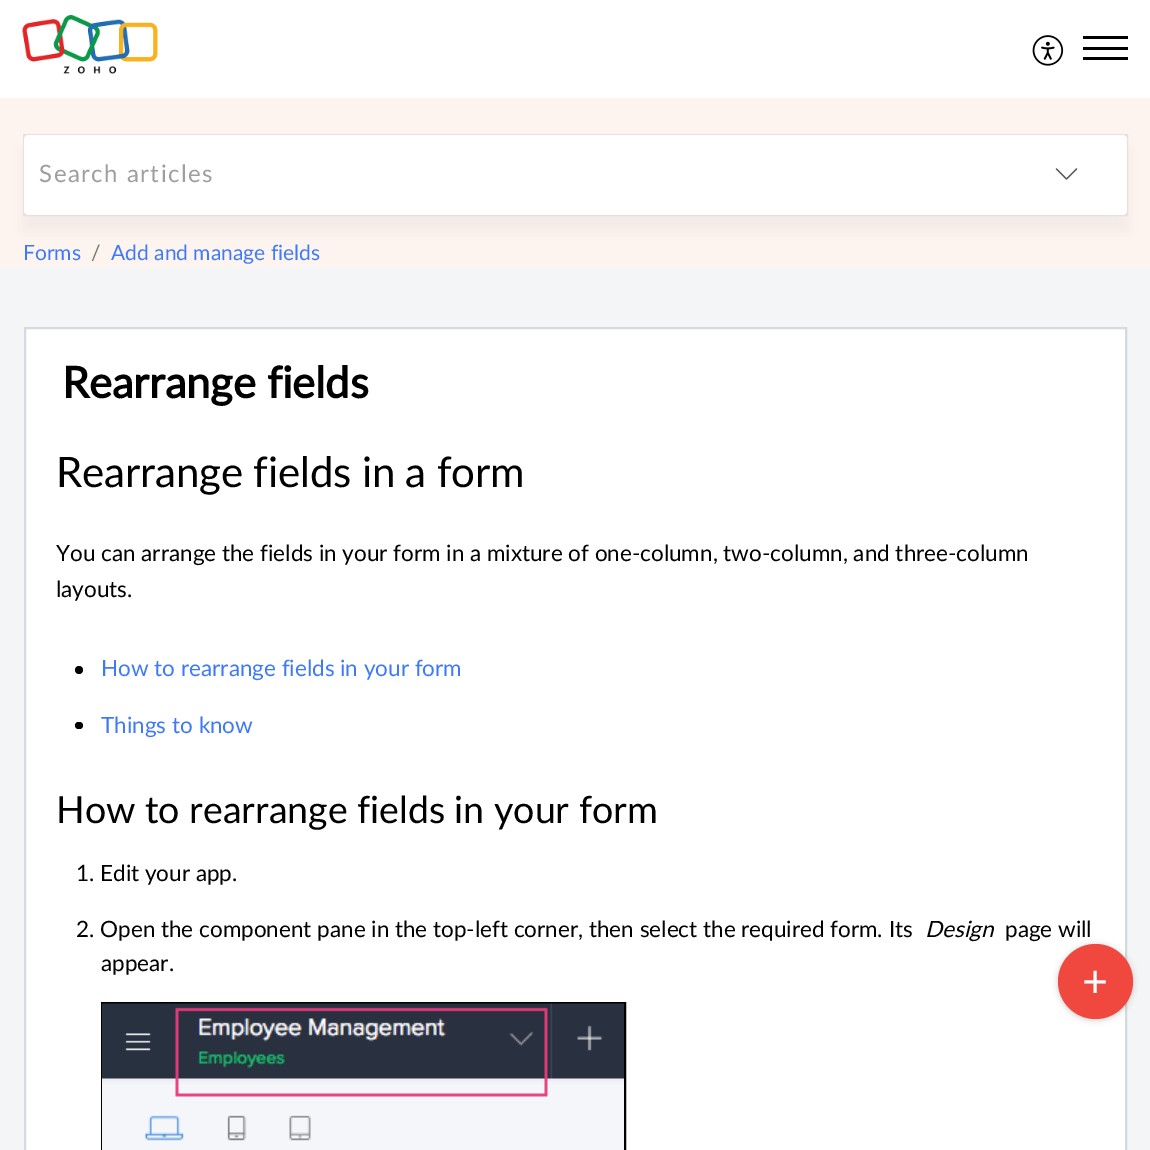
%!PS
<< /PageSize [1150 1150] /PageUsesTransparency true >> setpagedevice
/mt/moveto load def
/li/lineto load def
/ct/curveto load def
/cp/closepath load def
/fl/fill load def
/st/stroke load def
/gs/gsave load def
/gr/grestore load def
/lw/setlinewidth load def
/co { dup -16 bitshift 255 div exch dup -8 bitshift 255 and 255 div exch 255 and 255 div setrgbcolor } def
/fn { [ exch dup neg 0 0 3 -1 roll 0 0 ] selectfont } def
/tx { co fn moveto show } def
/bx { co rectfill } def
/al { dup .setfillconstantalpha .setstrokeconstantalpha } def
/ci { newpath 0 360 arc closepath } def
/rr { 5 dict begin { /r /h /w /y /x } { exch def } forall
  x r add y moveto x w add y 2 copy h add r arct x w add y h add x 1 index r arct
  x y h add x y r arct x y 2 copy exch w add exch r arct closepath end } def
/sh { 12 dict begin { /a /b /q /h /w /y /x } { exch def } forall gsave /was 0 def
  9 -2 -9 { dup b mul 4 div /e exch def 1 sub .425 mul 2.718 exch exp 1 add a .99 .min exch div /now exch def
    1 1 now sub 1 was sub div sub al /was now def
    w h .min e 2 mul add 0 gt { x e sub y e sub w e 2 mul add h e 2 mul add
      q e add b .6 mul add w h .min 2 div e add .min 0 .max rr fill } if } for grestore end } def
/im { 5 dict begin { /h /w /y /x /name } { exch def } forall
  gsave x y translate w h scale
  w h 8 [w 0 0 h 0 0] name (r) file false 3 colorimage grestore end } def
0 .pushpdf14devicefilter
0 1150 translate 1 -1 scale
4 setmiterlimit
0 0 1150 1150 16#F3F5F7 bx
0 0 1150 98 16#FFFFFF bx
(media/1.raw) 22 15 136 59 im
(media/2.raw) 1032 35 32 31 im
1083 47 45 3 16#000000 bx
1083 36 45 3 16#000000 bx
1083 57 45 3 16#000000 bx
0 98 1150 169 16#FDF4EF bx
16#F0E8E5 co
23 149 1105 82 0 7.5 .84 sh
16#EADFDB co
2 lw
24 135 1103 80 rectstroke
16#FFFFFF co
24 135 1103 80 5 rr fl
24 135 983 80 5 rr fl
0.5 al
1007 135 mt 1122 135 li 1125 135 1127 137 1127 140 ct 1127 210 li 1127 213 1125 215 1122 215 ct 1007 215 li cp fl
1 al
(media/3.raw) 1055 168 23 12 im
25 328 mt 1126 328 li 1126 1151 li 25 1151 li cp gs fl gr
16#D4DADF co
st
16#000000 co
1058 945 75 75 37.5 3 .2 sh
16#F0483E co
1095.5 981.5 37.5 ci fl
16#000000 co
79 670 4 ci fl
75 722 8 7 3.5 rr fl
102 1003 523 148 rectstroke
(media/4.raw) 102 1003 522 147 im
/Lato-Regular 24 fn
16#9E9E9E co
39 182 mt 1.5 0 (Search articles) ashow
(+) 1082 997 /Lato-Regular 45 16#FFFFFF tx
(Forms) 23 260 /Lato-Regular 21 16#3E7AF7 tx
(/) 91 260 /Lato-Regular 21 16#777777 tx
(Add and manage fields) 111 260 /Lato-Regular 21 16#3E7AF7 tx
(Rearrange fields) 62 398 /Lato-Bold 43.25 16#000000 tx
/Lato-Regular 42 fn
56 487 mt -.15 0 (Rearrange fields in a form) ashow
(You can arrange the fields in your form in a mixture of one-column, two-column, and three-column) 56 561 /Lato-Regular 22.5 16#000000 tx
(layouts.) 56 597 /Lato-Regular 22.5 16#000000 tx
(How to rearrange fields in your form) 101 676 /Lato-Regular 22.5 16#3E7AF7 tx
(Things to know) 101 733 /Lato-Regular 22.5 16#3E7AF7 tx
(How to rearrange fields in your form) 56 823 /Lato-Regular 37.5 16#000000 tx
(1. Edit your app.) 76 881 /Lato-Regular 22.5 16#000000 tx
(2. Open the component pane in the top-left corner, then select the required form. Its) 76 937 /Lato-Regular 22.5 16#000000 tx
(Design) 925 937 /Lato-Italic 22.5 16#000000 tx
(page will) 1005 937 /Lato-Regular 22.5 16#000000 tx
(appear.) 101 971 /Lato-Regular 22.5 16#000000 tx
.poppdf14devicefilter showpage
